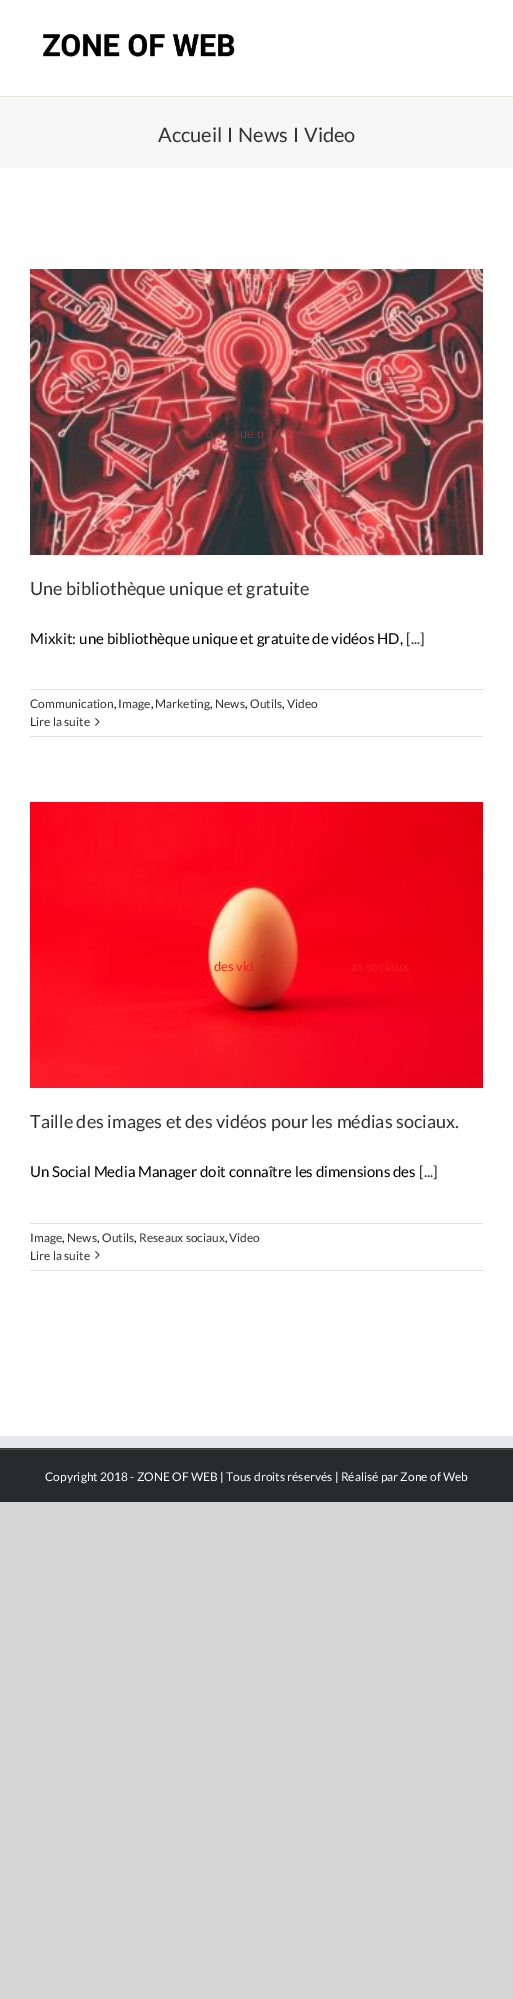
%!PS
<< /PageSize [513 1999] >> setpagedevice
/co { dup -16 bitshift 255 div exch dup -8 bitshift 255 and 255 div exch 255 and 255 div setrgbcolor } def
/fn { [ exch dup neg 0 0 3 -1 roll 0 0 ] selectfont } def
/tx { co fn moveto show } def
/bx { co rectfill } def
/im { 5 dict begin { /h /w /y /x /name } { exch def } forall
  gsave x y translate w h scale
  w h 8 [w 0 0 h 0 0] name (r) file false 3 colorimage grestore end } def
0 1999 translate 1 -1 scale
4 setmiterlimit
0 0 513 1999 16#D7D6D6 bx
0 0 513 1436 16#FFFFFF bx
0 96 513 1 16#EDE2D7 bx
(media/1.raw) 43 33 192 24 im
0 98 513 70 16#F6F6F6 bx
(media/2.raw) 30 269 453 286 im
30 689 453 1 16#E0DEDE bx
30 736 453 1 16#E0DEDE bx
(media/3.raw) 95 718 5 8 im
(media/4.raw) 30 802 453 286 im
30 1223 453 1 16#E0DEDE bx
30 1270 453 1 16#E0DEDE bx
(media/3.raw) 95 1251 5 8 im
0 1448 513 1 16#363839 bx
0 1436 513 12 16#E9EAEE bx
0 1450 513 52 16#282A2B bx
0 1449 513 1 16#4B4C4D bx
(Accueil) 158 142 /Lato-Regular 20 16#333333 tx
(I) 227 142 /Lato-Regular 20 16#333333 tx
(News) 238 142 /Lato-Regular 20 16#333333 tx
(I) 293 142 /Lato-Regular 20 16#333333 tx
(Video) 304 142 /Lato-Regular 20 16#333333 tx
(o) 206 438 /Lato-Regular 13 16#81393D tx
(ue u) 240 438 /Lato-Regular 13 16#81393D tx
(Une bibliothèque unique et gratuite) 30 595 /Lato-Regular 18 16#333333 tx
(Mixkit: une bibliothèque unique et gratuite de vidéos HD,) 30 644 /Lato-Regular 15 16#000000 tx
([...]) 406 644 /Lato-Regular 15 16#333333 tx
(Communication) 30 708 /Lato-Regular 12 16#333333 tx
(,) 114 708 /Lato-Regular 12 16#000000 tx
(Image) 118 708 /Lato-Regular 12 16#333333 tx
(,) 151 708 /Lato-Regular 12 16#000000 tx
(Marketing) 155 708 /Lato-Regular 12 16#333333 tx
(,) 210 708 /Lato-Regular 12 16#000000 tx
(News) 215 708 /Lato-Regular 12 16#333333 tx
(,) 245 708 /Lato-Regular 12 16#000000 tx
(Outils) 250 708 /Lato-Regular 12 16#333333 tx
(,) 282 708 /Lato-Regular 12 16#000000 tx
(Video) 287 708 /Lato-Regular 12 16#333333 tx
(Lire la suite) 30 726 /Lato-Regular 12 16#333333 tx
(des vid) 214 971 /Lato-Regular 13 16#F21D21 tx
(as sociaux.) 351 971 /Lato-Regular 13 16#F21D21 tx
(Taille des images et des vidéos pour les médias sociaux.) 30 1128 /Lato-Regular 18 16#333333 tx
(Un Social Media Manager doit connaître les dimensions des) 30 1177 /Lato-Regular 15 16#000000 tx
([...]) 419 1177 /Lato-Regular 15 16#333333 tx
(Image) 30 1242 /Lato-Regular 12 16#333333 tx
(,) 62 1242 /Lato-Regular 12 16#000000 tx
(News) 67 1242 /Lato-Regular 12 16#333333 tx
(,) 97 1242 /Lato-Regular 12 16#000000 tx
(Outils) 102 1242 /Lato-Regular 12 16#333333 tx
(,) 134 1242 /Lato-Regular 12 16#000000 tx
(Reseaux sociaux) 139 1242 /Lato-Regular 12 16#333333 tx
(,) 225 1242 /Lato-Regular 12 16#000000 tx
(Video) 229 1242 /Lato-Regular 12 16#333333 tx
(Lire la suite) 30 1260 /Lato-Regular 12 16#333333 tx
(Copyright 2018 - ZONE OF WEB | Tous droits réservés | Réalisé par Zone of Web) 45 1481 /Lato-Regular 12 16#FFFFFF tx
showpage
